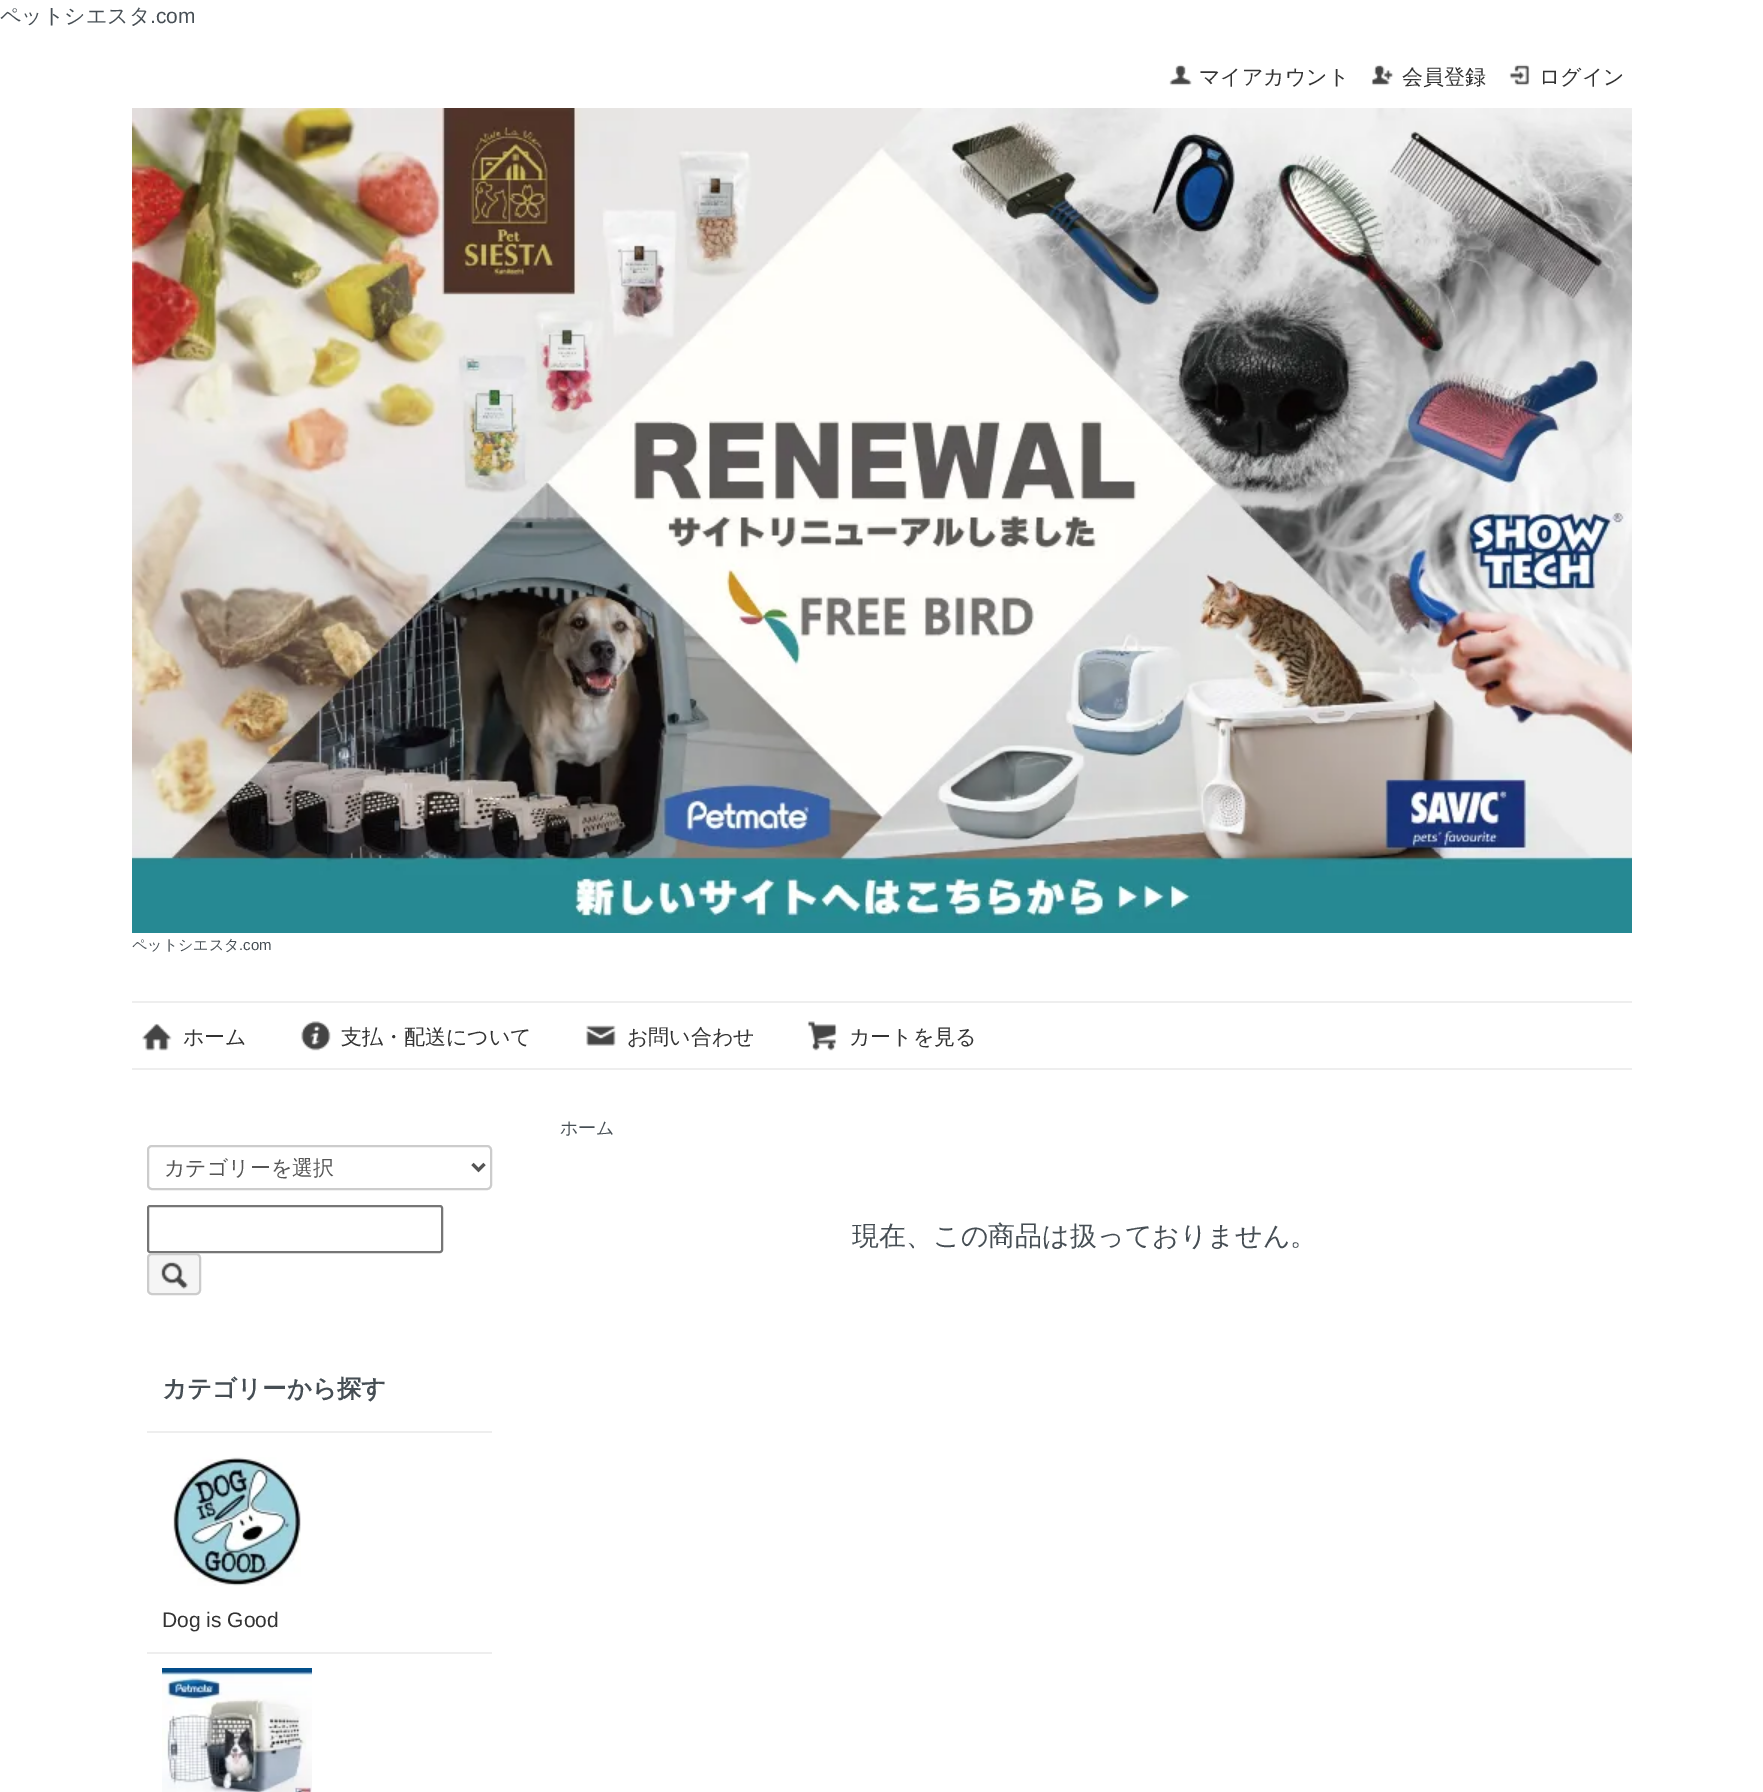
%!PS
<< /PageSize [1763 1792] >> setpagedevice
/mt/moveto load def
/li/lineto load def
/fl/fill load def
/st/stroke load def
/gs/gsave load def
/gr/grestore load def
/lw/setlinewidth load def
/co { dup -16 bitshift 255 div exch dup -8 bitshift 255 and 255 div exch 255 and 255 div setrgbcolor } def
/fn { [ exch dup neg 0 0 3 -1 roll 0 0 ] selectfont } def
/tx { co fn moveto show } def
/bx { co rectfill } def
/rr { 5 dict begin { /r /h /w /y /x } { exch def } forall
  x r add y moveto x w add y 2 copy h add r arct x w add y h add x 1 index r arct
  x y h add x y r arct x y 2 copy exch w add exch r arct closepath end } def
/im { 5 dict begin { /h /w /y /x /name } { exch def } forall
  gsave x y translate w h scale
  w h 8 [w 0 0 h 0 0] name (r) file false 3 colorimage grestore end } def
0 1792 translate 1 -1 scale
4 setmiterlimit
0 0 1763 1792 16#FFFFFF bx
(media/1.raw) 1169 64 23 22 im
(media/2.raw) 1371 64 23 22 im
(media/3.raw) 1509 64 21 22 im
(media/4.raw) 132 108 1500 825 im
132 1001 1500 2 16#EEEEEE bx
132 1068 1500 2 16#EEEEEE bx
(media/5.raw) 142 1023 30 28 im
(media/6.raw) 301 1021 30 30 im
(media/7.raw) 586 1025 30 21 im
(media/8.raw) 807 1021 30 30 im
16#CCCCCC co
2 lw
148 1146 343 43 4 rr st
16#555555 co
3 lw
472.5 1164 mt 478.5 1170 li 484.5 1164 li st
16#767676 co
2 lw
148 1206 294 46 2 rr st
16#F5F5F5 co
148 1254 52 40 4 rr gs fl gr
16#CCCCCC co
st
(media/9.raw) 160 1261 28 28 im
147 1431 345 2 16#EEEEEE bx
(media/10.raw) 173 1457 128 129 im
147 1652 345 2 16#EEEEEE bx
(media/11.raw) 162 1668 150 124 im
(ペットシエスタ) 0 23 /WenQuanYiZenHei-Medium 21 16#464E54 tx
(.com) 150 23 /LiberationSans-Regular 21 16#464E54 tx
(マイアカウント) 1199 84 /WenQuanYiZenHei-Medium 21 16#333333 tx
(会員登録) 1402 84 /WenQuanYiZenHei-Medium 21 16#333333 tx
(ログイン) 1539 84 /WenQuanYiZenHei-Medium 21 16#333333 tx
(ペットシエスタ) 132 950 /WenQuanYiZenHei-Medium 15 16#464E54 tx
(.com) 239 950 /LiberationSans-Regular 15 16#464E54 tx
(ホーム) 183 1044 /WenQuanYiZenHei-Medium 21 16#333333 tx
(支払・配送について) 341 1044 /WenQuanYiZenHei-Medium 21 16#333333 tx
(お問い合わせ) 627 1044 /WenQuanYiZenHei-Medium 21 16#333333 tx
(カートを見る) 849 1044 /WenQuanYiZenHei-Medium 21 16#333333 tx
(カテゴリーを選択) 164 1175 /WenQuanYiZenHei-Medium 21 16#555555 tx
(カテゴリーから探す) 162 1397 /WenQuanYiZenHei-Bold 24.5 16#464E54 tx
(Dog is Good) 162 1627 /LiberationSans-Regular 21 16#333333 tx
(ホーム) 560 1134 /WenQuanYiZenHei-Medium 18 16#464E54 tx
(現在、この商品は扱っておりません。) 852 1245 /WenQuanYiZenHei-Medium 27 16#464E54 tx
showpage
